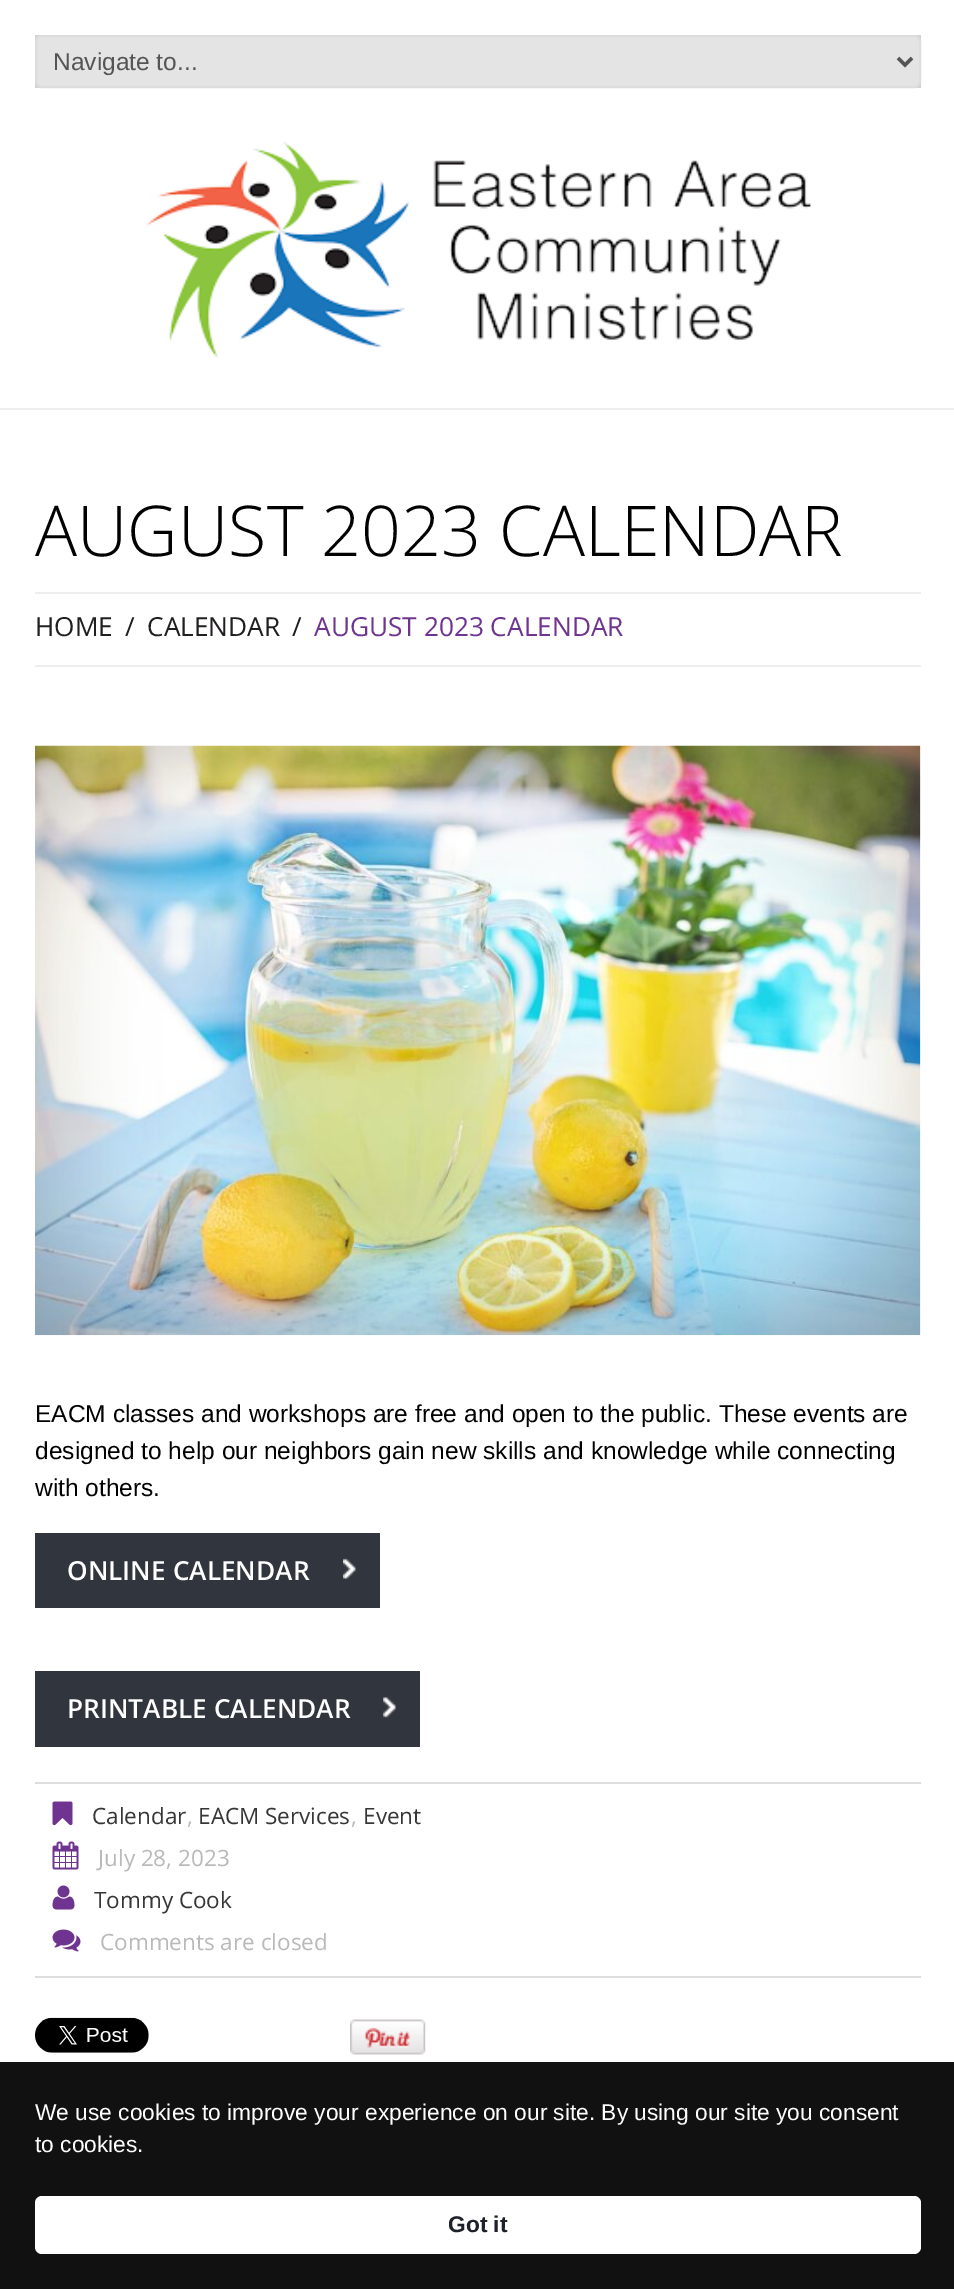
%!PS
<< /PageSize [954 2289] >> setpagedevice
/mt/moveto load def
/li/lineto load def
/fl/fill load def
/st/stroke load def
/gs/gsave load def
/gr/grestore load def
/lw/setlinewidth load def
/co { dup -16 bitshift 255 div exch dup -8 bitshift 255 and 255 div exch 255 and 255 div setrgbcolor } def
/fn { [ exch dup neg 0 0 3 -1 roll 0 0 ] selectfont } def
/tx { co fn moveto show } def
/bx { co rectfill } def
/rr { 5 dict begin { /r /h /w /y /x } { exch def } forall
  x r add y moveto x w add y 2 copy h add r arct x w add y h add x 1 index r arct
  x y h add x y r arct x y 2 copy exch w add exch r arct closepath end } def
/im { 5 dict begin { /h /w /y /x /name } { exch def } forall
  gsave x y translate w h scale
  w h 8 [w 0 0 h 0 0] name (r) file false 3 colorimage grestore end } def
0 2289 translate 1 -1 scale
4 setmiterlimit
0 0 954 2289 16#FFFFFF bx
0 408 954 2 16#EDEEEE bx
35 35 886 53 16#D1D2D4 bx
16#E4E4E4 co
36 36 884 51 6 rr gs fl gr
16#DDDDDD co
2 lw
st
16#555555 co
3.5 lw
898 58 mt 905 65 li 912 58 li st
(media/1.raw) 145 141 666 218 im
35 592 886 2 16#EDEEEE bx
35 665 886 2 16#EDEEEE bx
(media/2.raw) 35 745 886 591 im
35 1533 345 75 16#31353D bx
(media/3.raw) 343 1558 13 21 im
35 1671 385 76 16#31353D bx
(media/4.raw) 383 1697 13 21 im
35 1782 886 2 16#DDDDDD bx
35 1976 886 2 16#DDDDDD bx
(media/5.raw) 52 1801 21 25 im
(media/6.raw) 52 1841 27 29 im
(media/7.raw) 52 1885 23 25 im
(media/8.raw) 52 1929 29 23 im
(media/9.raw) 35 2017 114 36 im
(media/10.raw) 350 2019 76 36 im
0 2062 954 227 16#111111 bx
16#FFFFFF co
35 2196 886 58 7 rr fl
(Navigate to...) 53 70 /LiberationSans-Regular 24.5 16#555555 tx
(AUGUST 2023 CALENDAR) 35 556 /OpenSans-Light 70 16#000000 tx
(HOME) 35 636 /OpenSans-Regular 26.25 16#201E20 tx
(/) 125 636 /OpenSans-Regular 26.25 16#201E20 tx
(CALENDAR) 147 636 /OpenSans-Regular 26.25 16#201E20 tx
(/) 292 636 /OpenSans-Regular 26.25 16#201E20 tx
(AUGUST 2023 CALENDAR) 314 636 /OpenSans-Regular 26.25 16#6E3490 tx
(EACM classes and workshops are free and open to the public. These events are) 35 1422 /LiberationSans-Regular 24.5 16#000000 tx
(designed to help our neighbors gain new skills and knowledge while connecting) 35 1459 /LiberationSans-Regular 24.5 16#000000 tx
(with others.) 35 1496 /LiberationSans-Regular 24.5 16#000000 tx
(ONLINE CALENDAR) 67 1580 /OpenSans-SemiBold 26.25 16#FFFFFF tx
(PRINTABLE CALENDAR) 67 1718 /OpenSans-SemiBold 26.25 16#FFFFFF tx
(Calendar) 92 1824 /OpenSans-Regular 22.5 16#363636 tx
(,) 187 1824 /OpenSans-Regular 22.5 16#B9B9B9 tx
(EACM Services) 198 1824 /OpenSans-Regular 22.5 16#363636 tx
(,) 351 1824 /OpenSans-Regular 22.5 16#B9B9B9 tx
(Event) 363 1824 /OpenSans-Regular 22.5 16#363636 tx
(July 28, 2023) 98 1866 /OpenSans-Regular 22.5 16#B9B9B9 tx
(Tommy Cook) 94 1908 /OpenSans-Regular 22.5 16#363636 tx
(Comments are closed) 100 1950 /OpenSans-Regular 22.5 16#B9B9B9 tx
(We use cookies to improve your experience on our site. By using our site you consent) 35 2120 /LiberationSans-Regular 22.75 16#FFFFFF tx
(to cookies.) 35 2152 /LiberationSans-Regular 22.75 16#FFFFFF tx
(Got it) 448 2232 /LiberationSans-Bold 22.75 16#1D2129 tx
showpage
